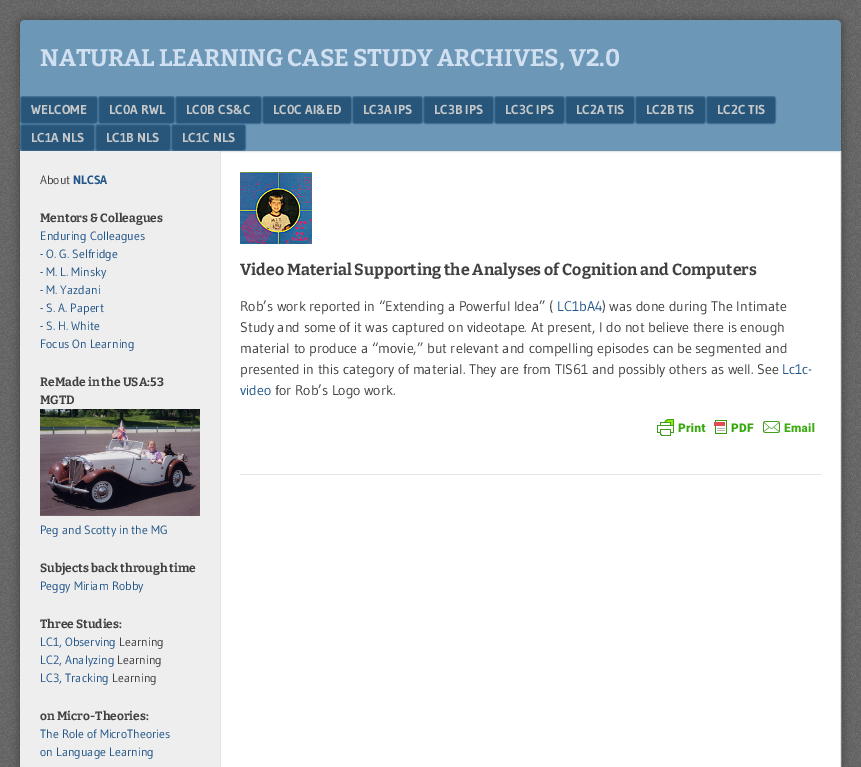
%!PS
<< /PageSize [861 767] /PageUsesTransparency true >> setpagedevice
/mt/moveto load def
/li/lineto load def
/ct/curveto load def
/cp/closepath load def
/fl/fill load def
/st/stroke load def
/gs/gsave load def
/gr/grestore load def
/co { dup -16 bitshift 255 div exch dup -8 bitshift 255 and 255 div exch 255 and 255 div setrgbcolor } def
/fn { [ exch dup neg 0 0 3 -1 roll 0 0 ] selectfont } def
/tx { co fn moveto show } def
/bx { co rectfill } def
/al { dup .setfillconstantalpha .setstrokeconstantalpha } def
/rr { 5 dict begin { /r /h /w /y /x } { exch def } forall
  x r add y moveto x w add y 2 copy h add r arct x w add y h add x 1 index r arct
  x y h add x y r arct x y 2 copy exch w add exch r arct closepath end } def
/sh { 12 dict begin { /a /b /q /h /w /y /x } { exch def } forall gsave /was 0 def
  9 -2 -9 { dup b mul 4 div /e exch def 1 sub .425 mul 2.718 exch exp 1 add a .99 .min exch div /now exch def
    1 1 now sub 1 was sub div sub al /was now def
    w h .min e 2 mul add 0 gt { x e sub y e sub w e 2 mul add h e 2 mul add
      q e add b .6 mul add w h .min 2 div e add .min 0 .max rr fill } if } for grestore end } def
/im { 5 dict begin { /h /w /y /x /name } { exch def } forall
  gsave x y translate w h scale
  w h 8 [w 0 0 h 0 0] name (r) file false 3 colorimage grestore end } def
0 .pushpdf14devicefilter
0 767 translate 1 -1 scale
4 setmiterlimit
0 0 861 767 16#666666 bx
(media/1.raw) 0 0 861 767 im
16#000000 co
20 20 821 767 5 5 .4 sh
16#6D97B7 co
25 20 mt 836 20 li 839 20 841 22 841 25 ct 841 151 li 20 151 li 20 25 li 20 22 22 20 25 20 ct cp fl
16#27567A co
20.5 96.5 77 27 2.5 rr gs fl gr
16#417196 co
st
16#27567A co
98.5 96.5 76 27 2.5 rr gs fl gr
16#417196 co
st
16#27567A co
175.5 96.5 86 27 2.5 rr gs fl gr
16#417196 co
st
16#27567A co
262.5 96.5 89 27 2.5 rr gs fl gr
16#417196 co
st
16#27567A co
352.5 96.5 70 27 2.5 rr gs fl gr
16#417196 co
st
16#27567A co
423.5 96.5 70 27 2.5 rr gs fl gr
16#417196 co
st
16#27567A co
494.5 96.5 70 27 2.5 rr gs fl gr
16#417196 co
st
16#27567A co
565.5 96.5 69 27 2.5 rr gs fl gr
16#417196 co
st
16#27567A co
635.5 96.5 70 27 2.5 rr gs fl gr
16#417196 co
st
16#27567A co
706.5 96.5 69 27 2.5 rr gs fl gr
16#417196 co
st
16#27567A co
20.5 124.5 74 26 2.5 rr gs fl gr
16#417196 co
st
16#27567A co
95.5 124.5 75 26 2.5 rr gs fl gr
16#417196 co
st
16#27567A co
171.5 124.5 74 26 2.5 rr gs fl gr
16#417196 co
st
220 152 620 615 16#FFFFFF bx
16#E6E6E6 co
20.5 151.5 820 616 rectstroke
0.1 al
16#000000 co
20 151 mt 220 151 li 220 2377 li 20 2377 li 20 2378 li 221 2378 li 221 150 li 20 150 li cp fl
1 al
20 151 200 616 16#EEEEEE bx
(media/2.raw) 40 409 160 107 im
240 474 581 1 16#E4E4E4 bx
(media/3.raw) 240 172 72 72 im
(media/4.raw) 657 419 158 17 im
(NATURAL LEARNING CASE STUDY ARCHIVES, V2.0) 40 66 /Bitter-Thin 24 16#D0E0F0 tx
(WELCOME) 31 114 /Gudea-Bold 13 16#C6C8C9 tx
(LC0A RWL) 109 114 /Gudea-Bold 13 16#C6C8C9 tx
(LC0B CS&C) 186 114 /Gudea-Bold 13 16#C6C8C9 tx
(LC0C AI&ED) 273 114 /Gudea-Bold 13 16#C6C8C9 tx
(LC3A IPS) 363 114 /Gudea-Bold 13 16#C6C8C9 tx
(LC3B IPS) 434 114 /Gudea-Bold 13 16#C6C8C9 tx
(LC3C IPS) 505 114 /Gudea-Bold 13 16#C6C8C9 tx
(LC2A TIS) 576 114 /Gudea-Bold 13 16#C6C8C9 tx
(LC2B TIS) 646 114 /Gudea-Bold 13 16#C6C8C9 tx
(LC2C TIS) 717 114 /Gudea-Bold 13 16#C6C8C9 tx
(LC1A NLS) 31 142 /Gudea-Bold 13 16#C6C8C9 tx
(LC1B NLS) 106 142 /Gudea-Bold 13 16#C6C8C9 tx
(LC1C NLS) 182 142 /Gudea-Bold 13 16#C6C8C9 tx
(About) 40 184 /Gudea-Regular 12 16#404040 tx
(NLCSA) 73 184 /Gudea-Bold 12 16#225588 tx
(Mentors & Colleagues) 40 222 /Bitter-Thin 12 16#404040 tx
(Enduring Colleagues) 40 240 /Gudea-Regular 12 16#225588 tx
(- O. G. Selfridge) 40 258 /Gudea-Regular 12 16#225588 tx
(- M. L. Minsky) 40 276 /Gudea-Regular 12 16#225588 tx
(- M. Yazdani) 40 294 /Gudea-Regular 12 16#225588 tx
(- S. A. Papert) 40 312 /Gudea-Regular 12 16#225588 tx
(- S. H. White) 40 330 /Gudea-Regular 12 16#225588 tx
(Focus On Learning) 40 348 /Gudea-Regular 12 16#225588 tx
(ReMade in the USA:53) 40 386 /Bitter-Thin 12 16#404040 tx
(MGTD) 40 404 /Bitter-Thin 12 16#404040 tx
(Peg and Scotty in the MG) 40 534 /Gudea-Regular 12 16#225588 tx
(Subjects back through time) 40 572 /Bitter-Thin 12 16#404040 tx
(Peggy Miriam Robby) 40 590 /Gudea-Regular 12 16#225588 tx
(Three Studies:) 40 628 /Bitter-Thin 12 16#404040 tx
(LC1, Observing) 40 646 /Gudea-Regular 12 16#225588 tx
(Learning) 119 646 /Gudea-Regular 12 16#404040 tx
(LC2, Analyzing) 40 664 /Gudea-Regular 12 16#225588 tx
(Learning) 117 664 /Gudea-Regular 12 16#404040 tx
(LC3, Tracking) 40 682 /Gudea-Regular 12 16#225588 tx
(Learning) 112 682 /Gudea-Regular 12 16#404040 tx
(on Micro-Theories:) 40 720 /Bitter-Thin 12 16#404040 tx
(The Role of MicroTheories) 40 738 /Gudea-Regular 12 16#225588 tx
(on Language Learning) 40 756 /Gudea-Regular 12 16#225588 tx
(Video Material Supporting the Analyses of Cognition and Computers) 240 275 /Bitter-Thin 16 16#404040 tx
(Rob’s work reported in “Extending a Powerful Idea” \() 240 311 /Gudea-Regular 14 16#404040 tx
(LC1bA4) 557 311 /Gudea-Regular 14 16#225588 tx
(\) was done during The Intimate) 602 311 /Gudea-Regular 14 16#404040 tx
(Study and some of it was captured on videotape. At present, I do not believe there is enough) 240 332 /Gudea-Regular 14 16#404040 tx
(material to produce a “movie,” but relevant and compelling episodes can be segmented and) 240 353 /Gudea-Regular 14 16#404040 tx
(presented in this category of material. They are from TIS61 and possibly others as well. See) 240 374 /Gudea-Regular 14 16#404040 tx
(Lc1c-) 782 374 /Gudea-Regular 14 16#225588 tx
(video) 240 395 /Gudea-Regular 14 16#225588 tx
(for Rob’s Logo work.) 275 395 /Gudea-Regular 14 16#404040 tx
.poppdf14devicefilter showpage
